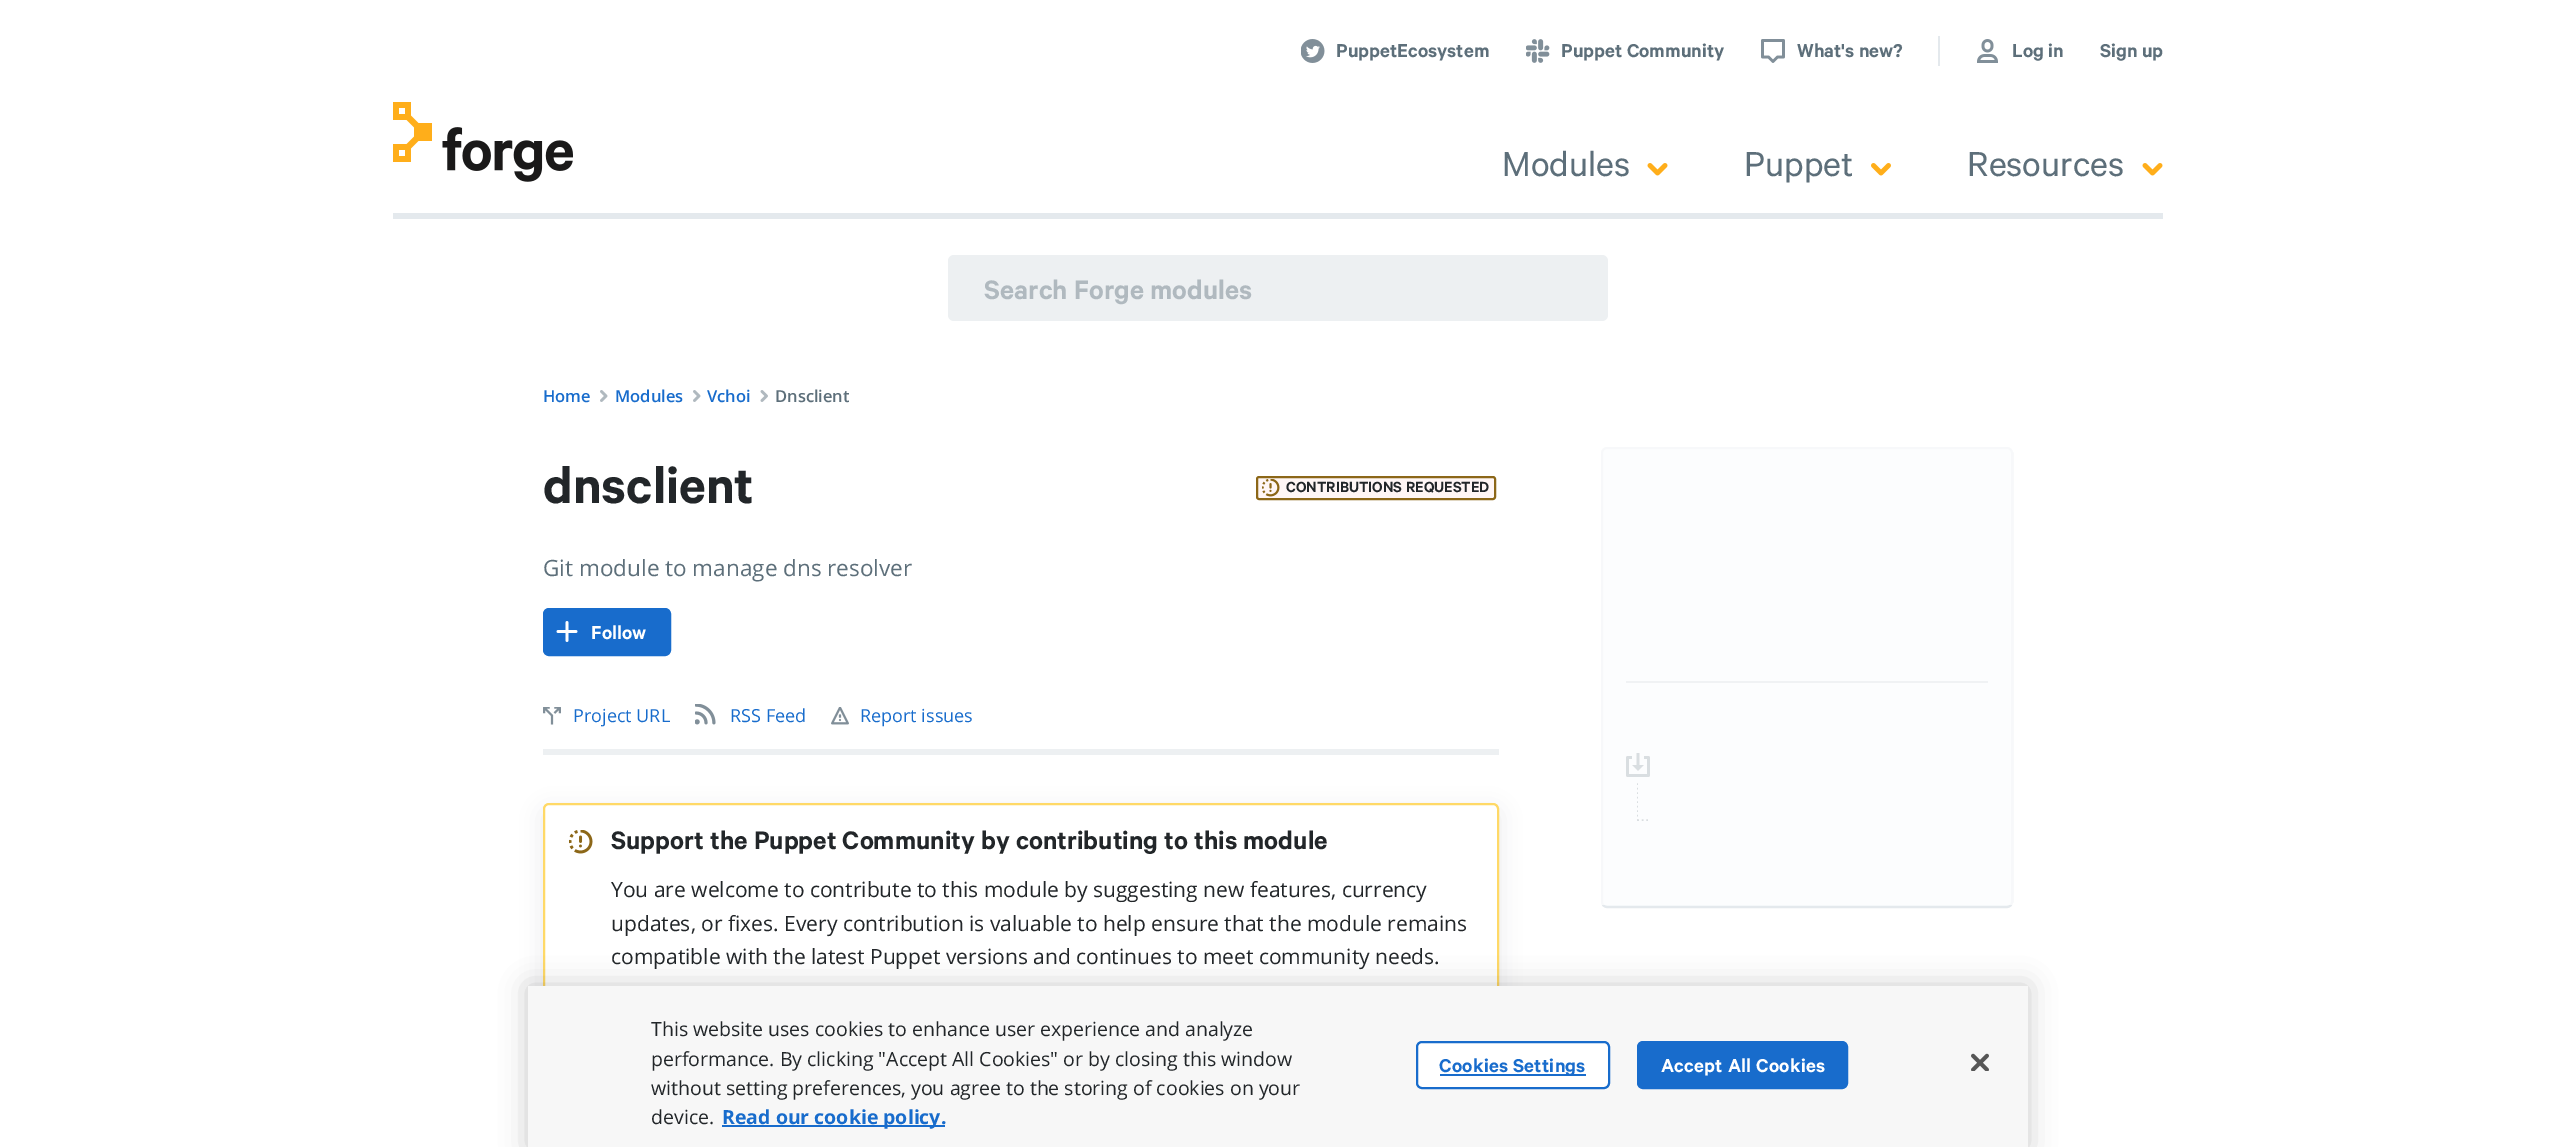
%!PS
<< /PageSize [2556 1147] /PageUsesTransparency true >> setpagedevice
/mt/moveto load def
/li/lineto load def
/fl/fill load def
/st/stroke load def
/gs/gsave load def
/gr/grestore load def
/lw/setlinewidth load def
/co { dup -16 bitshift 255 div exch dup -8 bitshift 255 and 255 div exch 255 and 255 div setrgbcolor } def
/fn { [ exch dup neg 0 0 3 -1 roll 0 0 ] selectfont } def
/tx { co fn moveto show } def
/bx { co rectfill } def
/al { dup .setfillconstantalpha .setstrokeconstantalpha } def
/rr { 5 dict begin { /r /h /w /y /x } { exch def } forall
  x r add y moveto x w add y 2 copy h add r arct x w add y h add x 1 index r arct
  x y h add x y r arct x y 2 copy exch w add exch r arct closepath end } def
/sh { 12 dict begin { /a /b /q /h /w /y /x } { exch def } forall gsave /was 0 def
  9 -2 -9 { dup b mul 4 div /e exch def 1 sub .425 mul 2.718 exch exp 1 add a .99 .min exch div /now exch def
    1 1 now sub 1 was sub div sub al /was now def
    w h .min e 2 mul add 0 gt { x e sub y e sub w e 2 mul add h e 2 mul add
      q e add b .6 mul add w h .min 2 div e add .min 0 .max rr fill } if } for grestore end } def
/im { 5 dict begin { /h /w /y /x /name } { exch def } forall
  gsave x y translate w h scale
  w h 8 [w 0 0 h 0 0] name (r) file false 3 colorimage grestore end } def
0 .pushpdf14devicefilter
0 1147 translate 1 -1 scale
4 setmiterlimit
0 0 2556 1147 16#FFFFFF bx
(media/1.raw) 1301 39 24 24 im
(media/2.raw) 1526 39 24 24 im
(media/3.raw) 1761 39 24 24 im
1938 36 2 30 16#E4E9ED bx
(media/4.raw) 1977 39 21 24 im
393 213 1770 6 16#E4E9ED bx
(media/5.raw) 393 102 180 80 im
(media/6.raw) 1647 163 21 13 im
(media/7.raw) 1871 163 20 13 im
(media/6.raw) 2142 163 21 13 im
16#EDF0F2 co
948 255 660 66 6 rr fl
(media/8.raw) 600 390 8 12 im
(media/8.raw) 693 390 8 12 im
(media/9.raw) 760 390 8 12 im
543 749 956 6 16#EDF0F2 bx
16#FFF6F5 co
1257 477 238 22 2 rr gs fl gr
16#8C6718 co
2 lw
st
(media/10.raw) 1262 479 18 18 im
16#186CCC co
544 609 126 46 5 rr gs fl gr
st
(media/11.raw) 556 621 22 21 im
(media/12.raw) 543 707 18 18 im
(media/13.raw) 695 704 21 21 im
(media/14.raw) 831 707 18 18 im
16#F5F8FA co
1602 448 410 459 5 rr gs fl gr
16#E4E9ED co
st
1626 681 362 2 16#CCD4D9 bx
(media/15.raw) 1626 753 24 24 im
gs
1637 782 13 39 rectclip
16#818F99 co
1.5 lw
2 setlinecap
[0 4.5] 0 setdash
1637 820 mt 1637 781 li st
gr
16#818F99 co
1.5 lw
2 setlinecap
[0 4.5] 0 setdash
1638 820 mt 1650 820 li st
0.7 al
1601 447 412 458 16#FFFFFF bx
1 al
16#959DA5 co
543 810 956 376 6 11 .2 sh
16#FFFFFF co
544 804 954 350 5 rr gs fl gr
16#FFD967 co
2 lw
0 setlinecap
[] 0 setdash
st
(media/16.raw) 569 830 24 24 im
16#000000 co
528 986 1500 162 0 13.5 .2 sh
528 986 1500 161 16#F7F7F7 bx
722 1125 223 2 16#186CCC bx
16#FFFFFF co
1417 1042 192 46 5 rr gs fl gr
16#186CCC co
st
1440 1074 146 2 16#186CCC bx
1638 1042 209 46 5 rr gs fl gr
st
(media/17.raw) 1971 1053 18 18 im
(PuppetEcosystem) 1336 57 /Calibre-SemiBold 21 16#5D6F7A tx
(Puppet Community) 1561 57 /Calibre-SemiBold 21 16#5D6F7A tx
(What's new?) 1797 57 /Calibre-SemiBold 21 16#5D6F7A tx
(Log in) 2012 57 /Calibre-SemiBold 21 16#5D6F7A tx
(Sign up) 2100 57 /Calibre-SemiBold 21 16#5D6F7A tx
(Modules) 1502 176 /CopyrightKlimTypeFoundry-Regular 39 16#5D6F7A tx
(Puppet) 1744 176 /CopyrightKlimTypeFoundry-Regular 39 16#5D6F7A tx
(Resources) 1967 176 /CopyrightKlimTypeFoundry-Regular 39 16#5D6F7A tx
(Search Forge modules) 984 299 /Calibre-SemiBold 30 16#B0B9BF tx
(Home) 543 402 /OpenSans-SemiBold 16.5 16#186CCC tx
(Modules) 615 402 /OpenSans-SemiBold 16.5 16#186CCC tx
(Vchoi) 707 402 /OpenSans-SemiBold 16.5 16#186CCC tx
(Dnsclient) 775 402 /OpenSans-SemiBold 16.5 16#5D6F7A tx
(dnsclient) 543 503 /Calibre-SemiBold 57 16#222629 tx
(CONTRIBUTIONS REQUESTED) 1286 492 /Calibre-SemiBold 16.5 16#222629 tx
(Git module to manage dns resolver) 543 576 /OpenSans-Regular 22.5 16#5D6F7A tx
(Follow) 591 639 /Calibre-SemiBold 21 16#FFFFFF tx
(Project URL) 573 722 /OpenSans-Regular 18 16#186CCC tx
(RSS Feed) 730 722 /OpenSans-Regular 18 16#186CCC tx
(Report issues) 860 722 /OpenSans-Regular 18 16#186CCC tx
(Support the Puppet Community by contributing to this module) 611 849 /Calibre-SemiBold 28.5 16#222629 tx
(You are welcome to contribute to this module by suggesting new features, currency) 611 897 /OpenSans-Regular 21 16#222629 tx
(updates, or fixes. Every contribution is valuable to help ensure that the module remains) 611 931 /OpenSans-Regular 21 16#222629 tx
(compatible with the latest Puppet versions and continues to meet community needs.) 611 964 /OpenSans-Regular 21 16#222629 tx
(This website uses cookies to enhance user experience and analyze) 651 1036 /OpenSans-Regular 19.5 16#222629 tx
(performance. By clicking "Accept All Cookies" or by closing this window) 651 1066 /OpenSans-Regular 19.5 16#222629 tx
(without setting preferences, you agree to the storing of cookies on your) 651 1095 /OpenSans-Regular 19.5 16#222629 tx
(device.) 651 1124 /OpenSans-Regular 19.5 16#222629 tx
(Read our cookie policy.) 722 1124 /OpenSans-Bold 19.5 16#186CCC tx
/Calibre-SemiBold 21 fn
1439 1072 mt .25 0 (Cookies Settings) ashow
16#FFFFFF co
1661 1072 mt .25 0 (Accept All Cookies) ashow
.poppdf14devicefilter showpage
